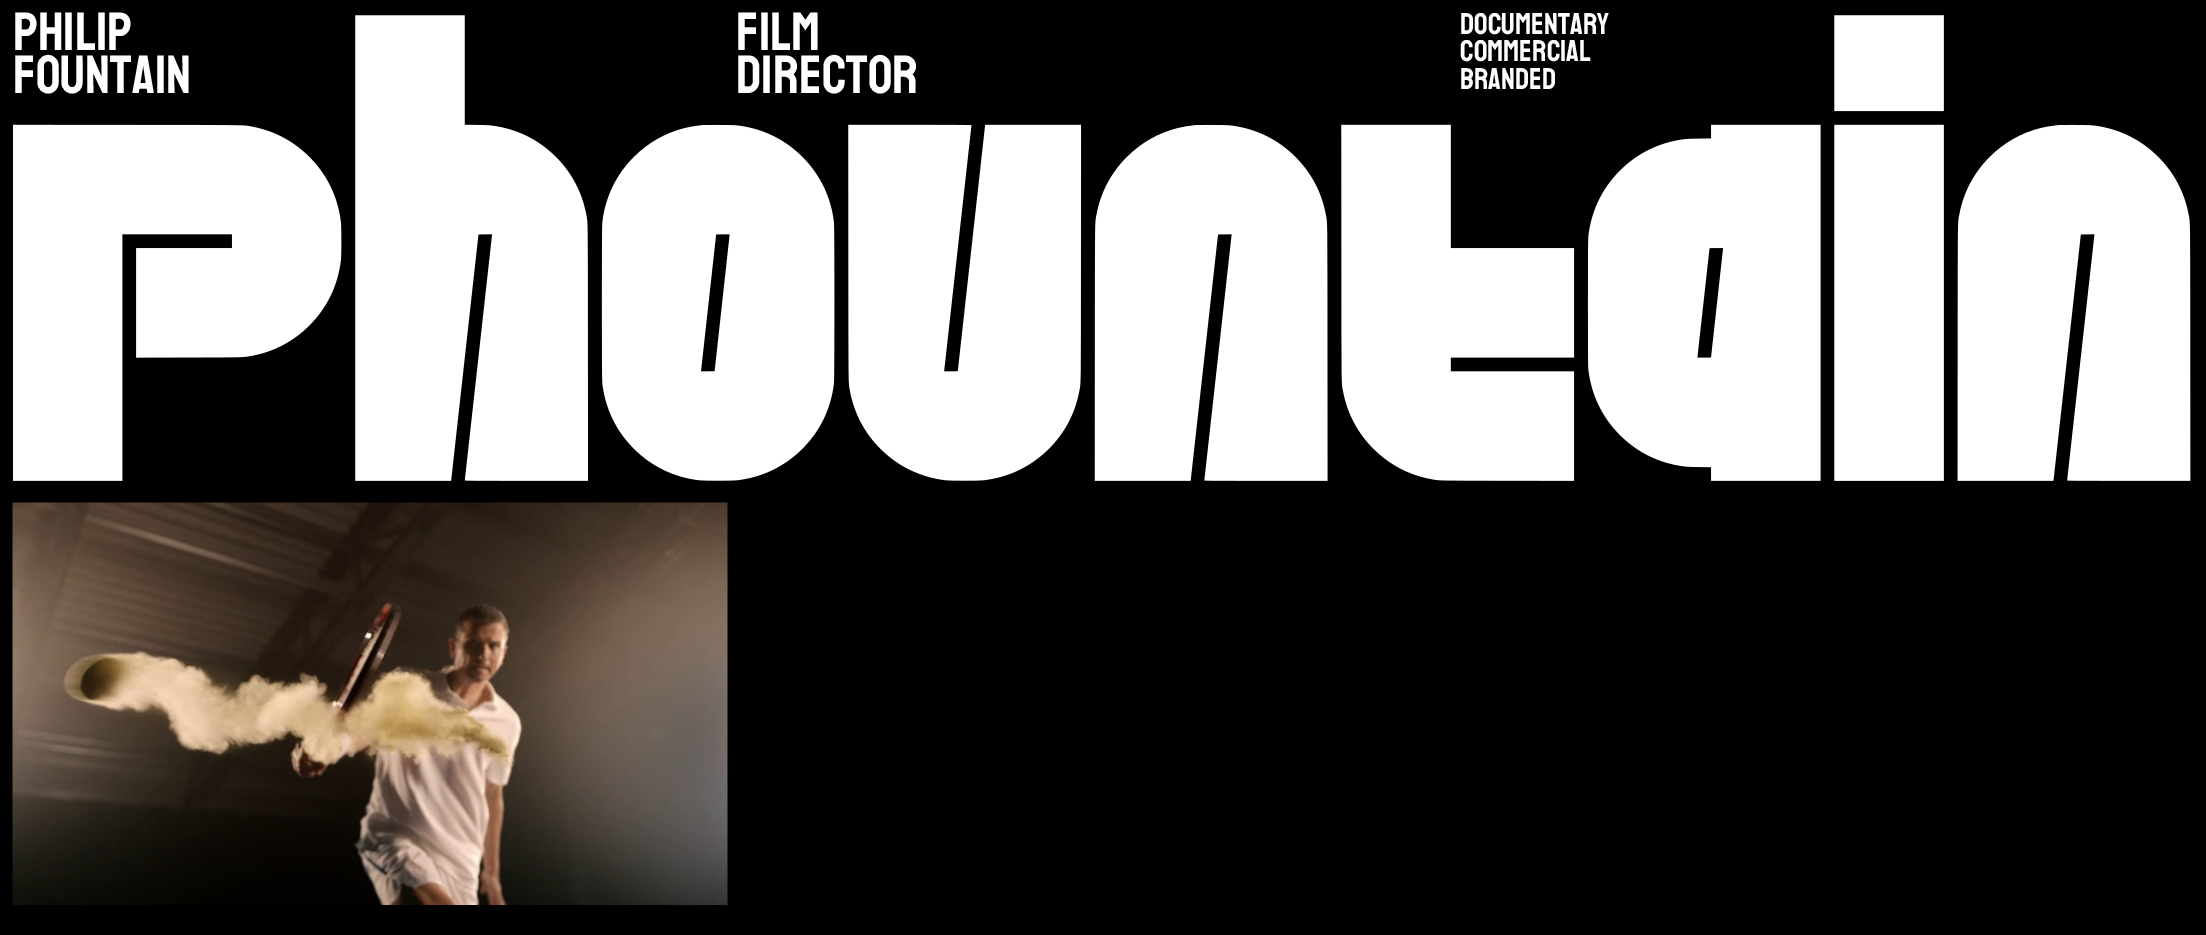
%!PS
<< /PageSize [2206 935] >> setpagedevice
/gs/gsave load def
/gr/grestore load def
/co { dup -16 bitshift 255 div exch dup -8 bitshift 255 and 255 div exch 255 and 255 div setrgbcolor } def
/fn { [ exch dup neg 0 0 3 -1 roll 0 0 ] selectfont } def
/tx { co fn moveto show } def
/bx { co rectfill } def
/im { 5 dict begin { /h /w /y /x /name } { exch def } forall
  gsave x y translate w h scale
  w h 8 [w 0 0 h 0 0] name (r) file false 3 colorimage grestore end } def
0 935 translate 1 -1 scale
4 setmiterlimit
0 0 2206 935 16#000000 bx
(media/1.raw) 13 15 2178 466 im
(media/2.raw) 12 502 716 403 im
(PHILIP) 13 50 /Bayon-Regular 54 16#FFFFFF tx
(FOUNTAIN) 13 93 /Bayon-Regular 54 16#FFFFFF tx
(FILM) 736 50 /Bayon-Regular 54 16#FFFFFF tx
(DIRECTOR) 736 93 /Bayon-Regular 54 16#FFFFFF tx
gs
1460 13 150 25 rectclip
(DOCUMENTARY) 1460 34 /Bayon-Regular 30 16#FFFFFF tx
gr
gs
1460 40 131 25 rectclip
(COMMERCIAL) 1460 61 /Bayon-Regular 30 16#FFFFFF tx
gr
(BRANDED) 1460 89 /Bayon-Regular 30 16#FFFFFF tx
showpage
